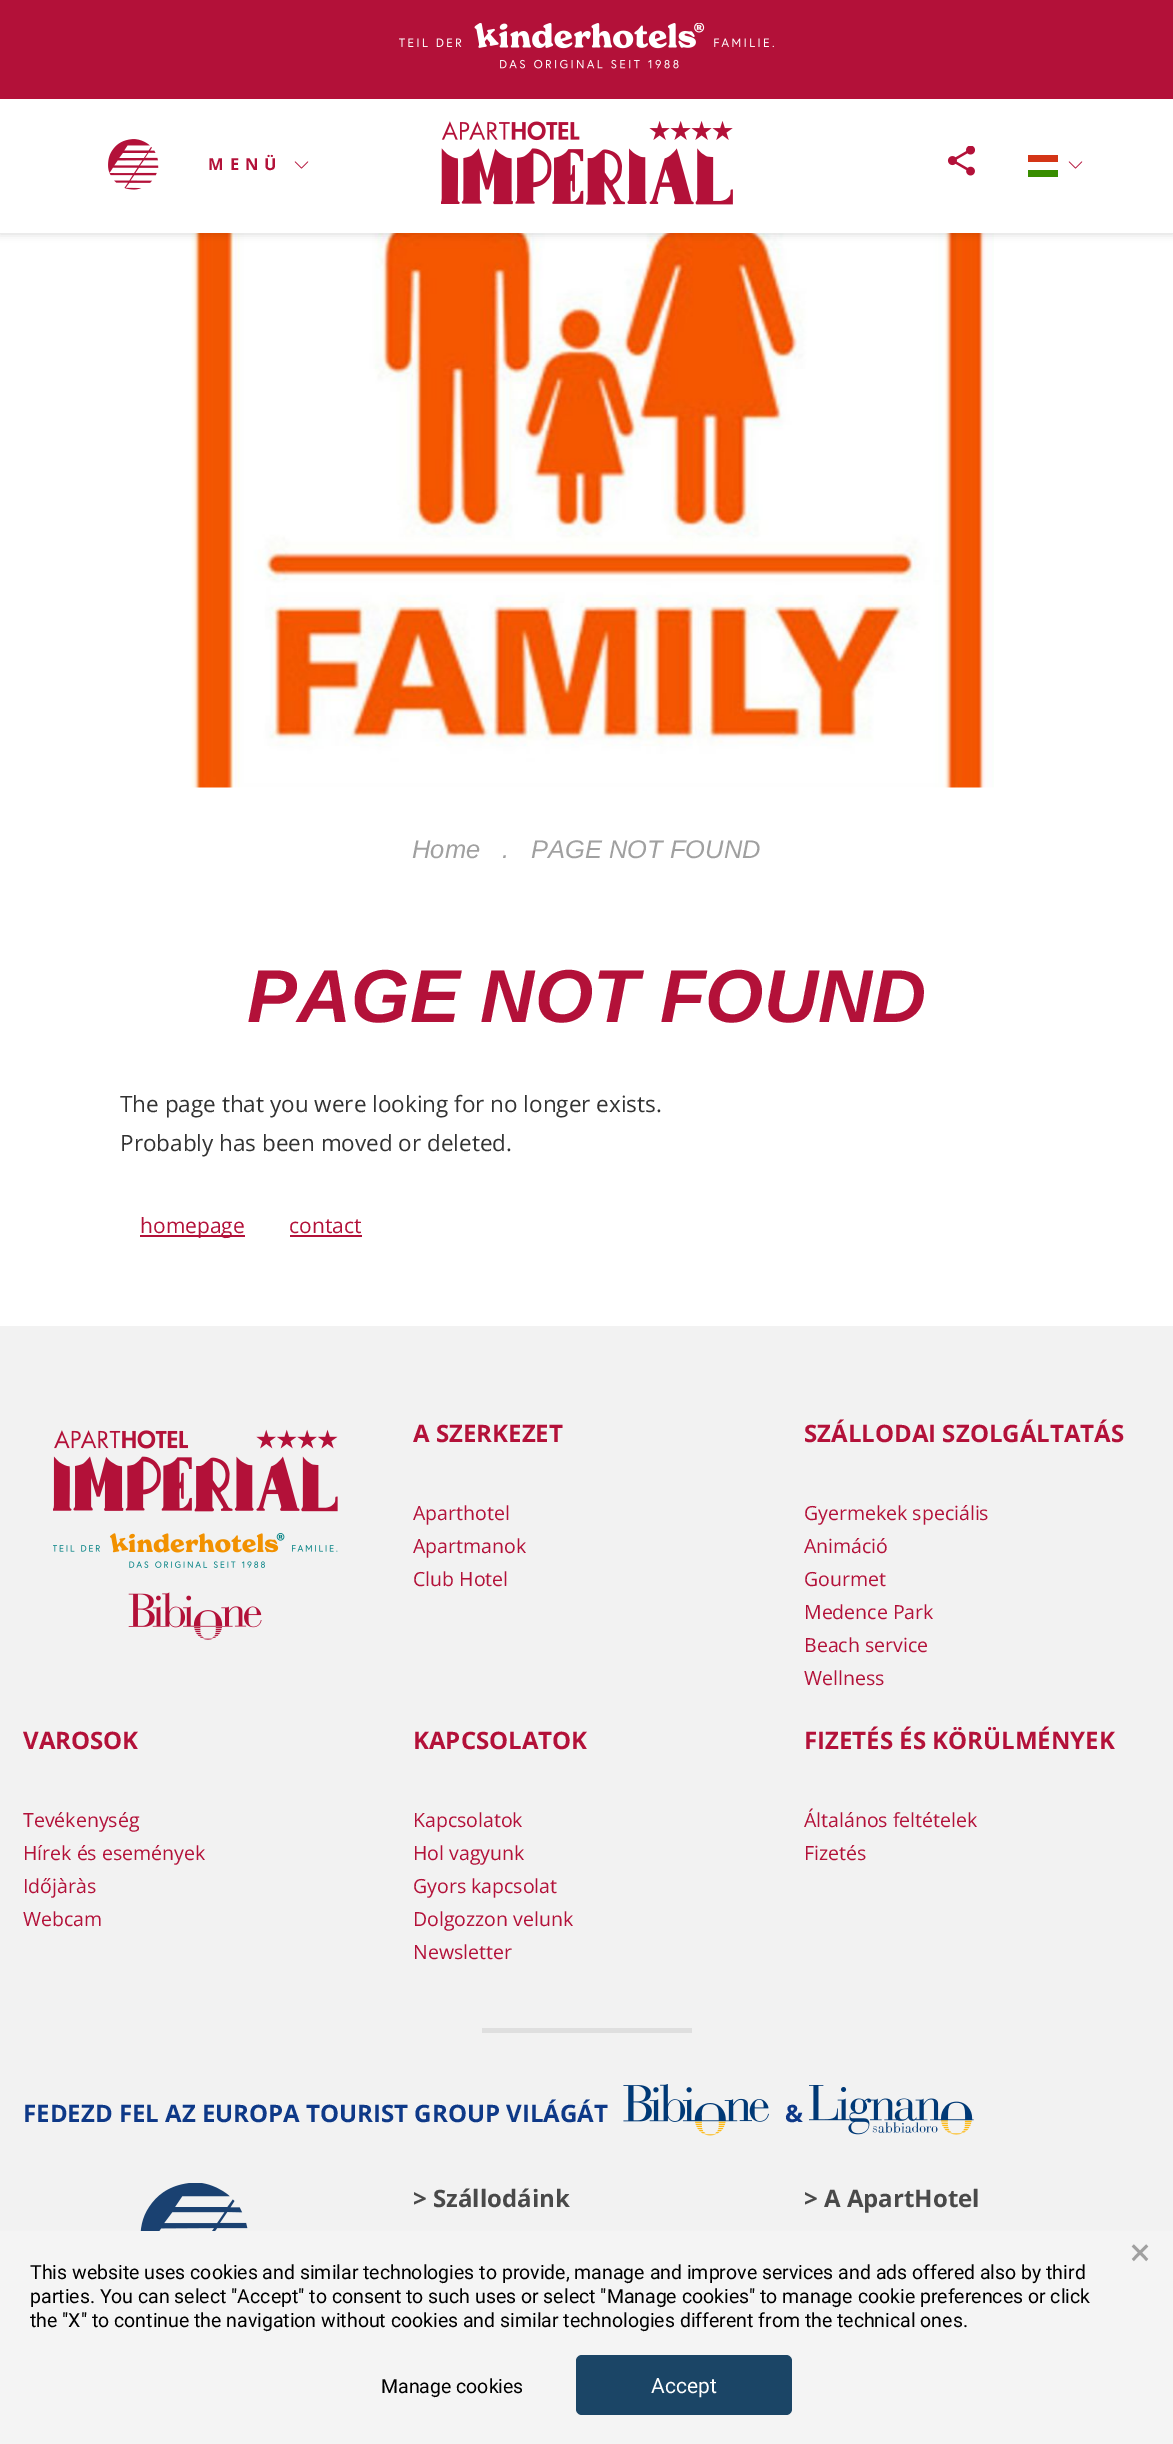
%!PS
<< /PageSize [1173 2444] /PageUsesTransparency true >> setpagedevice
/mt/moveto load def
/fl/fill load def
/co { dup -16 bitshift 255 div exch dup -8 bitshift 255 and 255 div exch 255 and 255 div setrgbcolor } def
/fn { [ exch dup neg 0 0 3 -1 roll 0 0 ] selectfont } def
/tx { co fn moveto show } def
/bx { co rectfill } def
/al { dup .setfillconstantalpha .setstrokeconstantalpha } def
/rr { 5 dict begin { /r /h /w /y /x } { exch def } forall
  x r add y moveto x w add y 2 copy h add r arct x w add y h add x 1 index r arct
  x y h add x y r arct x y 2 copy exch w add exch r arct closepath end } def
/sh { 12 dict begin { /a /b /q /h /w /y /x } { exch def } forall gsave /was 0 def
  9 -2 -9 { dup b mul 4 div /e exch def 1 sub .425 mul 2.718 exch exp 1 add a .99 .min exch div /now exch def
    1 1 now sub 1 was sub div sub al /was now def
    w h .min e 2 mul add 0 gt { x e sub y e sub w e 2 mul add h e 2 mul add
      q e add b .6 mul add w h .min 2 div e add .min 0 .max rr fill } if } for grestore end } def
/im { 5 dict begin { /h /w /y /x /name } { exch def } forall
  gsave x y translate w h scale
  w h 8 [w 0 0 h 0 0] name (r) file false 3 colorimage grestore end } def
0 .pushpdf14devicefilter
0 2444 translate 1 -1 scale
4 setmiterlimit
0 0 1173 2444 16#FFFFFF bx
(media/6.raw) 191 233 803 555 im
16#000000 co
0 2 1173 232 0 4 .15 sh
0 99 1173 134 16#FFFFFF bx
0 0 1173 99 16#B31139 bx
(media/1.raw) 399 23 375 46 im
(media/2.raw) 108 139 51 51 im
(media/3.raw) 294 161 15 8 im
(media/4.raw) 441 121 292 84 im
(media/5.raw) 947 146 28 30 im
1028 155 30 7 16#D43516 bx
(media/3.raw) 1068 161 15 8 im
1028 170 30 7 16#388D00 bx
140 1235 105 2 16#B31139 bx
290 1235 72 2 16#B31139 bx
0 1326 1173 905 16#F2F2F2 bx
(media/7.raw) 53 1429 285 83 im
(media/8.raw) 53 1533 285 35 im
(media/9.raw) 128 1592 134 48 im
482 2028 210 5 16#DFDFDF bx
(media/10.raw) 623 2084 146 52 im
(media/11.raw) 809 2085 165 50 im
(media/12.raw) 140 2183 108 48 im
0 2231 1173 213 16#F4F4F4 bx
16#1B4566 co
576 2355 216 60 6 rr fl
/OpenSans-Bold 16.5 fn
16#B31139 co
208 170 mt 6 0 (MENÜ) ashow
(Home) 412 858 /LiberationSans-Italic 25.5 16#A0A0A0 tx
(.) 502 858 /LiberationSans-Italic 25.5 16#A0A0A0 tx
(PAGE NOT FOUND) 531 858 /LiberationSans-Italic 25.5 16#A0A0A0 tx
(PAGE NOT FOUND) 247 1022 /LiberationSans-BoldItalic 75 16#B31139 tx
(The page that you were looking for no longer exists.) 120 1112 /OpenSans-Regular 22.5 16#333333 tx
(Probably has been moved or deleted.) 120 1151 /OpenSans-Regular 22.5 16#333333 tx
(homepage) 140 1233 /OpenSans-Regular 21 16#B31139 tx
(contact) 289 1233 /OpenSans-Regular 21 16#B31139 tx
(A SZERKEZET) 413 1442 /OpenSans-Bold 24 16#B31139 tx
(Aparthotel) 413 1520 /OpenSans-Regular 19.5 16#B31139 tx
(Apartmanok) 413 1553 /OpenSans-Regular 19.5 16#B31139 tx
(Club Hotel) 413 1586 /OpenSans-Regular 19.5 16#B31139 tx
(SZÁLLODAI SZOLGÁLTATÁS) 804 1442 /OpenSans-Bold 24 16#B31139 tx
(Gyermekek speciális) 804 1520 /OpenSans-Regular 19.5 16#B31139 tx
(Animáció) 804 1553 /OpenSans-Regular 19.5 16#B31139 tx
(Gourmet) 804 1586 /OpenSans-Regular 19.5 16#B31139 tx
(Medence Park) 804 1619 /OpenSans-Regular 19.5 16#B31139 tx
(Beach service) 804 1652 /OpenSans-Regular 19.5 16#B31139 tx
(Wellness) 804 1685 /OpenSans-Regular 19.5 16#B31139 tx
(VAROSOK) 23 1749 /OpenSans-Bold 24 16#B31139 tx
(Tevékenység) 23 1827 /OpenSans-Regular 19.5 16#B31139 tx
(Hírek és események) 23 1860 /OpenSans-Regular 19.5 16#B31139 tx
(Időjàràs) 23 1893 /OpenSans-Regular 19.5 16#B31139 tx
(Webcam) 23 1926 /OpenSans-Regular 19.5 16#B31139 tx
(KAPCSOLATOK) 413 1749 /OpenSans-Bold 24 16#B31139 tx
(Kapcsolatok) 413 1827 /OpenSans-Regular 19.5 16#B31139 tx
(Hol vagyunk) 413 1860 /OpenSans-Regular 19.5 16#B31139 tx
(Gyors kapcsolat) 413 1893 /OpenSans-Regular 19.5 16#B31139 tx
(Dolgozzon velunk) 413 1926 /OpenSans-Regular 19.5 16#B31139 tx
(Newsletter) 413 1959 /OpenSans-Regular 19.5 16#B31139 tx
(FIZETÉS ÉS KÖRÜLMÉNYEK) 804 1749 /OpenSans-Bold 24 16#B31139 tx
(Általános feltételek) 804 1827 /OpenSans-Regular 19.5 16#B31139 tx
(Fizetés) 804 1860 /OpenSans-Regular 19.5 16#B31139 tx
(FEDEZD FEL AZ EUROPA TOURIST GROUP VILÁGÁT) 23 2122 /OpenSans-Bold 24 16#0E3988 tx
(&) 785 2122 /OpenSans-Bold 24 16#0E3988 tx
(> Szállodáink) 413 2207 /OpenSans-Bold 24 16#494949 tx
(> A ApartHotel) 804 2207 /OpenSans-Bold 24 16#494949 tx
(×) 1130 2265 /Roboto-Regular 38 16#A0A0A0 tx
(This website uses cookies and similar technologies to provide, manage and improve services and ads offered also by third) 30 2279 /Roboto-Regular 19.5 16#000000 tx
(parties. You can select "Accept" to consent to such uses or select "Manage cookies" to manage cookie preferences or click) 30 2303 /Roboto-Regular 19.5 16#000000 tx
(the "X" to continue the navigation without cookies and similar technologies different from the technical ones.) 30 2327 /Roboto-Regular 19.5 16#000000 tx
(Manage cookies) 381 2393 /Roboto-Regular 19.5 16#000000 tx
(Accept) 651 2393 /Roboto-Regular 21 16#FFFFFF tx
.poppdf14devicefilter showpage
